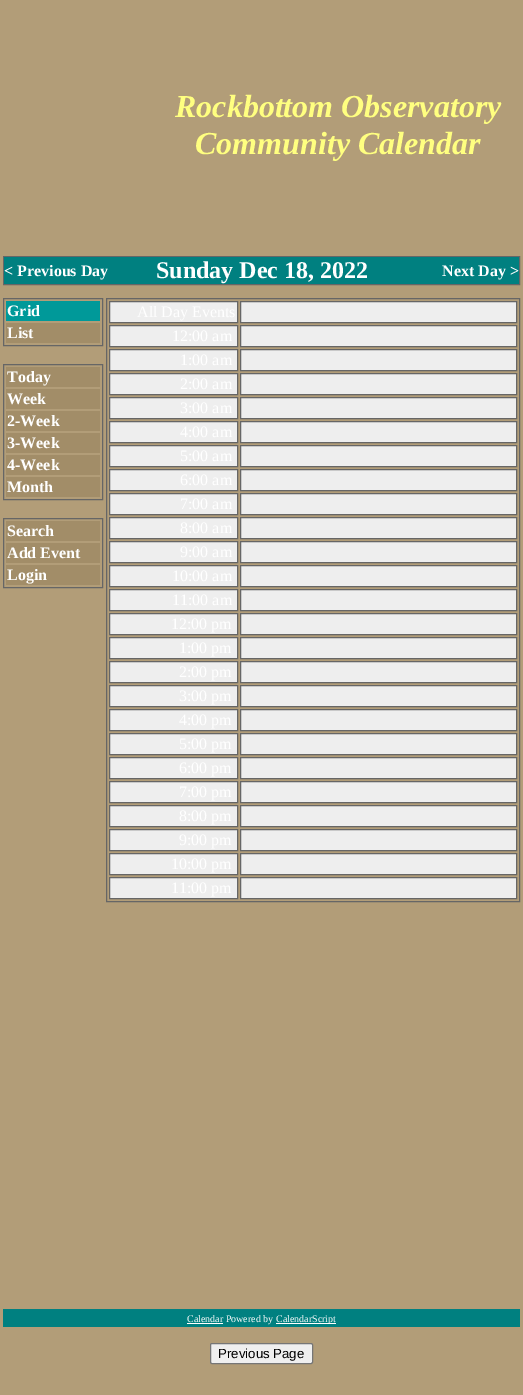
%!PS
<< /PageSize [523 1395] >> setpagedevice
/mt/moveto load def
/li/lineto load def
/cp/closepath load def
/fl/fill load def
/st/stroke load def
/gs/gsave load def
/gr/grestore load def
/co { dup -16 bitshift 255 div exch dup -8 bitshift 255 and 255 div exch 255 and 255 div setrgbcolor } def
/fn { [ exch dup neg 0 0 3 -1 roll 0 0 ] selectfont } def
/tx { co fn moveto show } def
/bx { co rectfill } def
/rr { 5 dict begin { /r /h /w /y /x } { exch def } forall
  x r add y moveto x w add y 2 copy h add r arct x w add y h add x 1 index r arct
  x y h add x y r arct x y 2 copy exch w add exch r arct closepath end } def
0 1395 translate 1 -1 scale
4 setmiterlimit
0 0 523 1395 16#B29D78 bx
16#666666 co
3.5 256.5 516 28 rectstroke
4 257 515 27 16#008080 bx
16#666666 co
3.5 298.5 99 47 rectstroke
6 301 94 20 16#009999 bx
6 323 94 20 16#A28D68 bx
16#666666 co
3.5 364.5 99 135 rectstroke
6 367 94 20 16#A28D68 bx
6 389 94 20 16#A28D68 bx
6 411 94 20 16#A28D68 bx
6 433 94 20 16#A28D68 bx
6 455 94 20 16#A28D68 bx
6 477 94 20 16#A28D68 bx
16#666666 co
3.5 518.5 99 69 rectstroke
6 521 94 20 16#A28D68 bx
6 543 94 20 16#A28D68 bx
6 565 94 20 16#A28D68 bx
16#666666 co
106.5 298.5 413 603 rectstroke
16#EEEEEE co
109.5 301.5 mt 237.5 301.5 li 237.5 322.5 li 109.5 322.5 li cp gs fl gr
16#666666 co
st
16#EEEEEE co
240.5 301.5 mt 516.5 301.5 li 516.5 322.5 li 240.5 322.5 li cp gs fl gr
16#666666 co
st
16#EEEEEE co
109.5 325.5 mt 237.5 325.5 li 237.5 346.5 li 109.5 346.5 li cp gs fl gr
16#666666 co
st
16#EEEEEE co
240.5 325.5 mt 516.5 325.5 li 516.5 346.5 li 240.5 346.5 li cp gs fl gr
16#666666 co
st
16#EEEEEE co
109.5 349.5 mt 237.5 349.5 li 237.5 370.5 li 109.5 370.5 li cp gs fl gr
16#666666 co
st
16#EEEEEE co
240.5 349.5 mt 516.5 349.5 li 516.5 370.5 li 240.5 370.5 li cp gs fl gr
16#666666 co
st
16#EEEEEE co
109.5 373.5 mt 237.5 373.5 li 237.5 394.5 li 109.5 394.5 li cp gs fl gr
16#666666 co
st
16#EEEEEE co
240.5 373.5 mt 516.5 373.5 li 516.5 394.5 li 240.5 394.5 li cp gs fl gr
16#666666 co
st
16#EEEEEE co
109.5 397.5 mt 237.5 397.5 li 237.5 418.5 li 109.5 418.5 li cp gs fl gr
16#666666 co
st
16#EEEEEE co
240.5 397.5 mt 516.5 397.5 li 516.5 418.5 li 240.5 418.5 li cp gs fl gr
16#666666 co
st
16#EEEEEE co
109.5 421.5 mt 237.5 421.5 li 237.5 442.5 li 109.5 442.5 li cp gs fl gr
16#666666 co
st
16#EEEEEE co
240.5 421.5 mt 516.5 421.5 li 516.5 442.5 li 240.5 442.5 li cp gs fl gr
16#666666 co
st
16#EEEEEE co
109.5 445.5 mt 237.5 445.5 li 237.5 466.5 li 109.5 466.5 li cp gs fl gr
16#666666 co
st
16#EEEEEE co
240.5 445.5 mt 516.5 445.5 li 516.5 466.5 li 240.5 466.5 li cp gs fl gr
16#666666 co
st
16#EEEEEE co
109.5 469.5 mt 237.5 469.5 li 237.5 490.5 li 109.5 490.5 li cp gs fl gr
16#666666 co
st
16#EEEEEE co
240.5 469.5 mt 516.5 469.5 li 516.5 490.5 li 240.5 490.5 li cp gs fl gr
16#666666 co
st
16#EEEEEE co
109.5 493.5 mt 237.5 493.5 li 237.5 514.5 li 109.5 514.5 li cp gs fl gr
16#666666 co
st
16#EEEEEE co
240.5 493.5 mt 516.5 493.5 li 516.5 514.5 li 240.5 514.5 li cp gs fl gr
16#666666 co
st
16#EEEEEE co
109.5 517.5 mt 237.5 517.5 li 237.5 538.5 li 109.5 538.5 li cp gs fl gr
16#666666 co
st
16#EEEEEE co
240.5 517.5 mt 516.5 517.5 li 516.5 538.5 li 240.5 538.5 li cp gs fl gr
16#666666 co
st
16#EEEEEE co
109.5 541.5 mt 237.5 541.5 li 237.5 562.5 li 109.5 562.5 li cp gs fl gr
16#666666 co
st
16#EEEEEE co
240.5 541.5 mt 516.5 541.5 li 516.5 562.5 li 240.5 562.5 li cp gs fl gr
16#666666 co
st
16#EEEEEE co
109.5 565.5 mt 237.5 565.5 li 237.5 586.5 li 109.5 586.5 li cp gs fl gr
16#666666 co
st
16#EEEEEE co
240.5 565.5 mt 516.5 565.5 li 516.5 586.5 li 240.5 586.5 li cp gs fl gr
16#666666 co
st
16#EEEEEE co
109.5 589.5 mt 237.5 589.5 li 237.5 610.5 li 109.5 610.5 li cp gs fl gr
16#666666 co
st
16#EEEEEE co
240.5 589.5 mt 516.5 589.5 li 516.5 610.5 li 240.5 610.5 li cp gs fl gr
16#666666 co
st
16#EEEEEE co
109.5 613.5 mt 237.5 613.5 li 237.5 634.5 li 109.5 634.5 li cp gs fl gr
16#666666 co
st
16#EEEEEE co
240.5 613.5 mt 516.5 613.5 li 516.5 634.5 li 240.5 634.5 li cp gs fl gr
16#666666 co
st
16#EEEEEE co
109.5 637.5 mt 237.5 637.5 li 237.5 658.5 li 109.5 658.5 li cp gs fl gr
16#666666 co
st
16#EEEEEE co
240.5 637.5 mt 516.5 637.5 li 516.5 658.5 li 240.5 658.5 li cp gs fl gr
16#666666 co
st
16#EEEEEE co
109.5 661.5 mt 237.5 661.5 li 237.5 682.5 li 109.5 682.5 li cp gs fl gr
16#666666 co
st
16#EEEEEE co
240.5 661.5 mt 516.5 661.5 li 516.5 682.5 li 240.5 682.5 li cp gs fl gr
16#666666 co
st
16#EEEEEE co
109.5 685.5 mt 237.5 685.5 li 237.5 706.5 li 109.5 706.5 li cp gs fl gr
16#666666 co
st
16#EEEEEE co
240.5 685.5 mt 516.5 685.5 li 516.5 706.5 li 240.5 706.5 li cp gs fl gr
16#666666 co
st
16#EEEEEE co
109.5 709.5 mt 237.5 709.5 li 237.5 730.5 li 109.5 730.5 li cp gs fl gr
16#666666 co
st
16#EEEEEE co
240.5 709.5 mt 516.5 709.5 li 516.5 730.5 li 240.5 730.5 li cp gs fl gr
16#666666 co
st
16#EEEEEE co
109.5 733.5 mt 237.5 733.5 li 237.5 754.5 li 109.5 754.5 li cp gs fl gr
16#666666 co
st
16#EEEEEE co
240.5 733.5 mt 516.5 733.5 li 516.5 754.5 li 240.5 754.5 li cp gs fl gr
16#666666 co
st
16#EEEEEE co
109.5 757.5 mt 237.5 757.5 li 237.5 778.5 li 109.5 778.5 li cp gs fl gr
16#666666 co
st
16#EEEEEE co
240.5 757.5 mt 516.5 757.5 li 516.5 778.5 li 240.5 778.5 li cp gs fl gr
16#666666 co
st
16#EEEEEE co
109.5 781.5 mt 237.5 781.5 li 237.5 802.5 li 109.5 802.5 li cp gs fl gr
16#666666 co
st
16#EEEEEE co
240.5 781.5 mt 516.5 781.5 li 516.5 802.5 li 240.5 802.5 li cp gs fl gr
16#666666 co
st
16#EEEEEE co
109.5 805.5 mt 237.5 805.5 li 237.5 826.5 li 109.5 826.5 li cp gs fl gr
16#666666 co
st
16#EEEEEE co
240.5 805.5 mt 516.5 805.5 li 516.5 826.5 li 240.5 826.5 li cp gs fl gr
16#666666 co
st
16#EEEEEE co
109.5 829.5 mt 237.5 829.5 li 237.5 850.5 li 109.5 850.5 li cp gs fl gr
16#666666 co
st
16#EEEEEE co
240.5 829.5 mt 516.5 829.5 li 516.5 850.5 li 240.5 850.5 li cp gs fl gr
16#666666 co
st
16#EEEEEE co
109.5 853.5 mt 237.5 853.5 li 237.5 874.5 li 109.5 874.5 li cp gs fl gr
16#666666 co
st
16#EEEEEE co
240.5 853.5 mt 516.5 853.5 li 516.5 874.5 li 240.5 874.5 li cp gs fl gr
16#666666 co
st
16#EEEEEE co
109.5 877.5 mt 237.5 877.5 li 237.5 898.5 li 109.5 898.5 li cp gs fl gr
16#666666 co
st
16#EEEEEE co
240.5 877.5 mt 516.5 877.5 li 516.5 898.5 li 240.5 898.5 li cp gs fl gr
16#666666 co
st
3 1309 517 18 16#008080 bx
187 1323 36 1 16#FFFFFF bx
276 1323 60 1 16#FFFFFF bx
16#EFEFEF co
210.5 1343.5 102 20 1.5 rr gs fl gr
16#767676 co
st
(Rockbottom Observatory) 175 117 /LiberationSerif-BoldItalic 32 16#FFFF80 tx
(Community Calendar) 195 154 /LiberationSerif-BoldItalic 32 16#FFFF80 tx
(< Previous Day) 4 276 /LiberationSerif-Bold 16 16#FFFFFF tx
(Sunday Dec 18, 2022) 156 278 /LiberationSerif-Bold 24 16#FFFFFF tx
(Next Day >) 442 276 /LiberationSerif-Bold 16 16#FFFFFF tx
(Grid) 7 316 /LiberationSerif-Bold 16 16#FFFFFF tx
(List) 7 338 /LiberationSerif-Bold 16 16#FFFFFF tx
(Today) 7 382 /LiberationSerif-Bold 16 16#FFFFFF tx
(Week) 7 404 /LiberationSerif-Bold 16 16#FFFFFF tx
(2-Week) 7 426 /LiberationSerif-Bold 16 16#FFFFFF tx
(3-Week) 7 448 /LiberationSerif-Bold 16 16#FFFFFF tx
(4-Week) 7 470 /LiberationSerif-Bold 16 16#FFFFFF tx
(Month) 7 492 /LiberationSerif-Bold 16 16#FFFFFF tx
(Search) 7 536 /LiberationSerif-Bold 16 16#FFFFFF tx
(Add Event) 7 558 /LiberationSerif-Bold 16 16#FFFFFF tx
(Login) 7 580 /LiberationSerif-Bold 16 16#FFFFFF tx
(All Day Events) 137 317 /LiberationSerif-Regular 16 16#FFFFFF tx
(12:00 am) 172 341 /LiberationSerif-Regular 16 16#FFFFFF tx
(1:00 am) 180 365 /LiberationSerif-Regular 16 16#FFFFFF tx
(2:00 am) 180 389 /LiberationSerif-Regular 16 16#FFFFFF tx
(3:00 am) 180 413 /LiberationSerif-Regular 16 16#FFFFFF tx
(4:00 am) 180 437 /LiberationSerif-Regular 16 16#FFFFFF tx
(5:00 am) 180 461 /LiberationSerif-Regular 16 16#FFFFFF tx
(6:00 am) 180 485 /LiberationSerif-Regular 16 16#FFFFFF tx
(7:00 am) 180 509 /LiberationSerif-Regular 16 16#FFFFFF tx
(8:00 am) 180 533 /LiberationSerif-Regular 16 16#FFFFFF tx
(9:00 am) 180 557 /LiberationSerif-Regular 16 16#FFFFFF tx
(10:00 am) 172 581 /LiberationSerif-Regular 16 16#FFFFFF tx
(11:00 am) 172 605 /LiberationSerif-Regular 16 16#FFFFFF tx
(12:00 pm) 171 629 /LiberationSerif-Regular 16 16#FFFFFF tx
(1:00 pm) 179 653 /LiberationSerif-Regular 16 16#FFFFFF tx
(2:00 pm) 179 677 /LiberationSerif-Regular 16 16#FFFFFF tx
(3:00 pm) 179 701 /LiberationSerif-Regular 16 16#FFFFFF tx
(4:00 pm) 179 725 /LiberationSerif-Regular 16 16#FFFFFF tx
(5:00 pm) 179 749 /LiberationSerif-Regular 16 16#FFFFFF tx
(6:00 pm) 179 773 /LiberationSerif-Regular 16 16#FFFFFF tx
(7:00 pm) 179 797 /LiberationSerif-Regular 16 16#FFFFFF tx
(8:00 pm) 179 821 /LiberationSerif-Regular 16 16#FFFFFF tx
(9:00 pm) 179 845 /LiberationSerif-Regular 16 16#FFFFFF tx
(10:00 pm) 171 869 /LiberationSerif-Regular 16 16#FFFFFF tx
(11:00 pm) 171 893 /LiberationSerif-Regular 16 16#FFFFFF tx
(Calendar Powered by) 187 1322 /LiberationSerif-Regular 10 16#FFFFFF tx
(CalendarScript) 276 1322 /LiberationSerif-Regular 10 16#FFFFFF tx
(Previous Page) 218 1358 /LiberationSans-Regular 13.25 16#000000 tx
showpage
